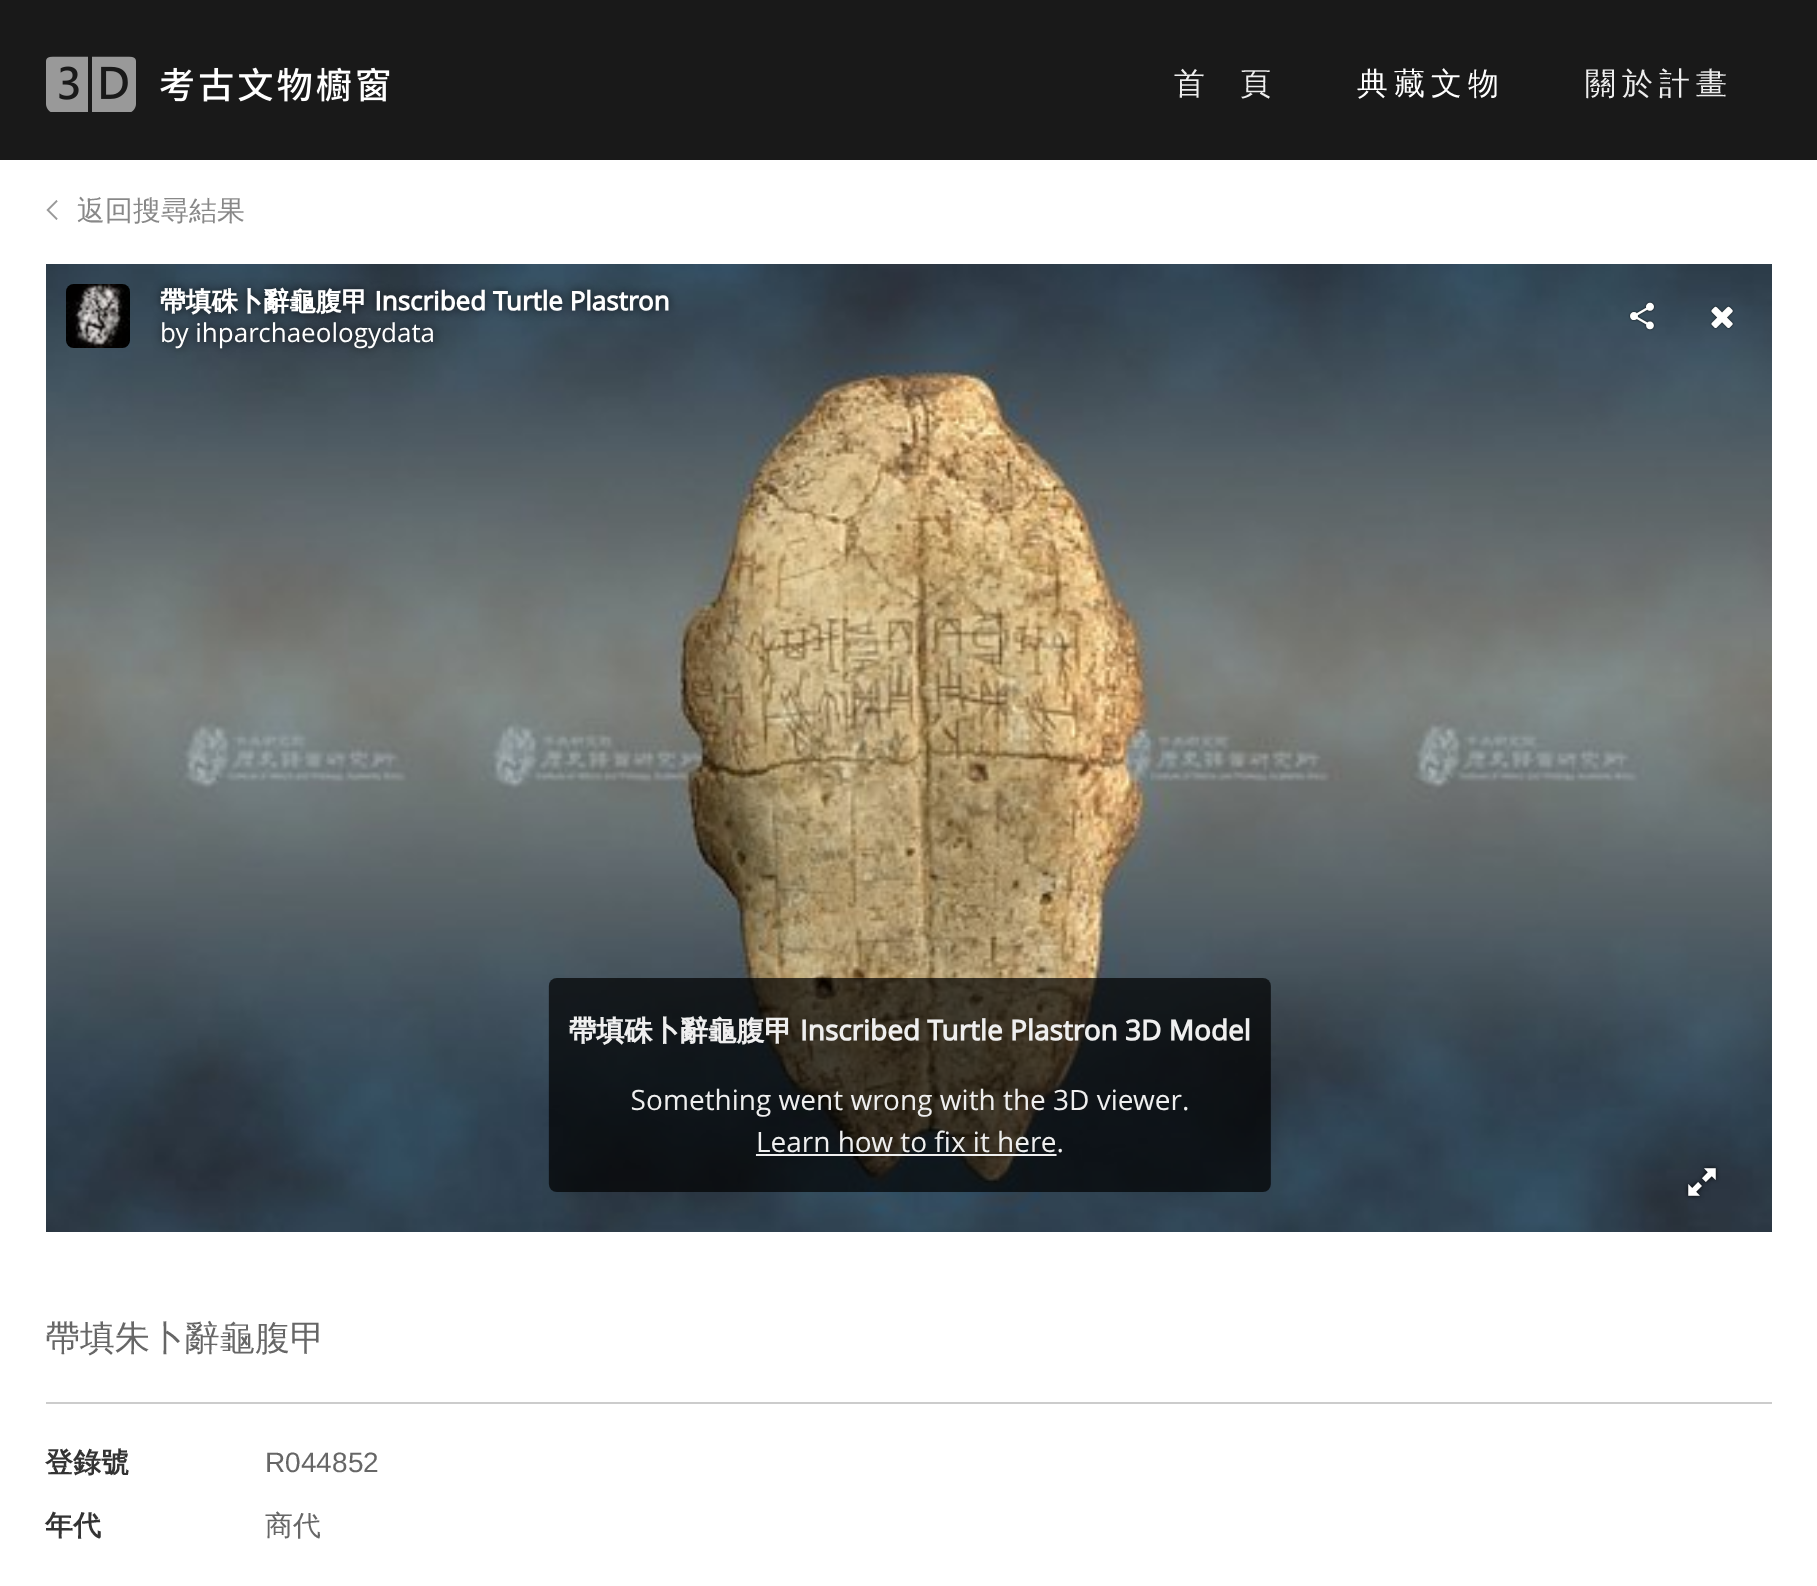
%!PS
<< /PageSize [1817 1586] >> setpagedevice
/mt/moveto load def
/li/lineto load def
/cp/closepath load def
/fl/fill load def
/co { dup -16 bitshift 255 div exch dup -8 bitshift 255 and 255 div exch 255 and 255 div setrgbcolor } def
/fn { [ exch dup neg 0 0 3 -1 roll 0 0 ] selectfont } def
/tx { co fn moveto show } def
/bx { co rectfill } def
/im { 5 dict begin { /h /w /y /x /name } { exch def } forall
  gsave x y translate w h scale
  w h 8 [w 0 0 h 0 0] name (r) file false 3 colorimage grestore end } def
0 1586 translate 1 -1 scale
4 setmiterlimit
0 0 1817 1586 16#FFFFFF bx
0 0 1817 160 16#191919 bx
(media/1.raw) 46 56 344 56 im
16#999999 co
56.5 220 mt 46.5 210 li 56.5 200 li 57.5 201.5 li 49 210 li 57.5 218.5 li cp fl
(media/2.raw) 46 264 1726 968 im
46 1402 1726 2 16#CCCCCC bx
/WenQuanYiZenHei-Medium 31 fn
16#EEEEEE co
1174 94 mt 6 0 (首) ashow
1240 94 mt 6 0 (頁) ashow
16#FFFFFF co
1357 94 mt 6 0 (典藏文物) ashow
16#EEEEEE co
1585 94 mt 6 0 (關於計畫) ashow
(返回搜尋結果) 77 220 /WenQuanYiZenHei-Medium 28 16#888888 tx
(帶填朱卜辭龜腹甲) 45 1350 /WenQuanYiZenHei-Medium 35 16#666666 tx
(登錄號) 45 1472 /WenQuanYiZenHei-Bold 28 16#333333 tx
(R044852) 265 1472 /LiberationSans-Regular 28 16#666666 tx
(年代) 45 1535 /WenQuanYiZenHei-Bold 28 16#333333 tx
(商代) 265 1535 /WenQuanYiZenHei-Medium 28 16#666666 tx
showpage
